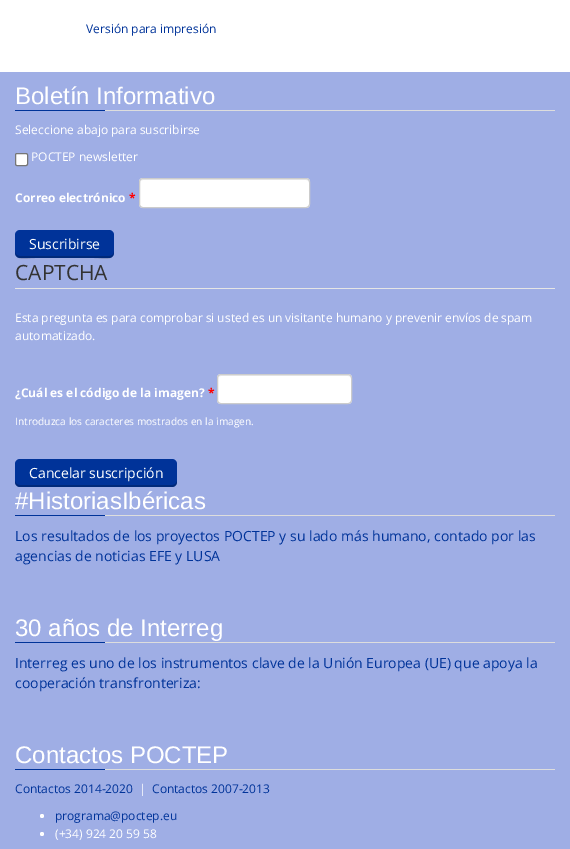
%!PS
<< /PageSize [570 849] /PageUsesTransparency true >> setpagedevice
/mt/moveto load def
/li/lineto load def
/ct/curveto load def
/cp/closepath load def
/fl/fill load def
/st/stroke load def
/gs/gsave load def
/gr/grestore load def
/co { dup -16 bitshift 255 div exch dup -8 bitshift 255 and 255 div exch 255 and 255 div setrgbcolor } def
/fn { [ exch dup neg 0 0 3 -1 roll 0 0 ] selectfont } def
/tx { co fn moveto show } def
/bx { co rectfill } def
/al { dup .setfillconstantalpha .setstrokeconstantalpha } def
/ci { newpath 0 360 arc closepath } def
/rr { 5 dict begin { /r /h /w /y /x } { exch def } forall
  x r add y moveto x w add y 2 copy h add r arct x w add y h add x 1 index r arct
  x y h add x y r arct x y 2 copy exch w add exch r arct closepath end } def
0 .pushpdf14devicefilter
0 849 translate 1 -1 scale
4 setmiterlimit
0 0 570 849 16#FFFFFF bx
0 72 570 777 16#9FAEE5 bx
105 110 450 1 16#DDDDDD bx
15 110 90 1 16#003399 bx
16#FFFFFF co
15.5 153.5 12 12 1.5 rr gs fl gr
16#767676 co
st
16#FFFFFF co
139 178 171 30 4 rr fl
16#ECECEC co
143 180 mt 306 180 li 308 180 309 181 309 183 ct 309 182 li 309 180 308 179 306 179 ct 143 179 li 141 179 140 180 140 182 ct 140 183 li 140 181 141 180 143 180 ct cp fl
16#CCCCCC co
139.5 178.5 170 29 3.5 rr st
16#003399 co
15 230 99 28 5 rr fl
0.2 al
16#000000 co
15 251 mt 15 262 26 258 35 258 ct 94 258 li 103 258 114 262 114 251 ct 114 254 112 256 109 256 ct 20 256 li 17 256 15 254 15 251 ct cp fl
1 al
15 288 540 1 16#E5E5E5 bx
16#FFFFFF co
217 374 135 30 4 rr fl
16#ECECEC co
221 376 mt 348 376 li 350 376 351 377 351 379 ct 351 377 351 375 349 375 ct 220 375 li 218 375 218 377 218 379 ct 218 377 219 376 221 376 ct cp fl
16#CCCCCC co
217.5 374.5 134 29 3.5 rr st
16#003399 co
15 459 162 28 5 rr fl
0.2 al
16#000000 co
15 480 mt 15 482 li 15 485 17 487 20 487 ct 172 487 li 175 487 177 485 177 482 ct 177 480 li 177 483 175 485 172 485 ct 20 485 li 17 485 15 483 15 480 ct cp fl
1 al
105 515 450 1 16#DDDDDD bx
15 515 90 1 16#003399 bx
105 642 450 1 16#DDDDDD bx
15 642 90 1 16#003399 bx
105 769 450 1 16#DDDDDD bx
15 769 90 1 16#003399 bx
16#FFFFFF co
42 816 2 ci fl
42 834 2 ci fl
(Versión para impresión) 86 33 /OpenSans-Regular 12 16#003399 tx
(Boletín Informativo) 15 104 /LiberationSans-Regular 24 16#FFFFFF tx
(Seleccione abajo para suscribirse) 15 134 /OpenSans-Regular 12 16#FFFFFF tx
(POCTEP newsletter) 31 161 /OpenSans-Regular 12 16#FFFFFF tx
(Correo electrónico) 15 202 /OpenSans-Bold 12 16#FFFFFF tx
(*) 129 202 /OpenSans-Bold 12 16#FF0000 tx
(Suscribirse) 29 249 /OpenSans-Regular 14 16#FFFFFF tx
(CAPTCHA) 15 280 /OpenSans-Regular 21 16#333333 tx
(Esta pregunta es para comprobar si usted es un visitante humano y prevenir envíos de spam) 15 322 /OpenSans-Regular 12 16#FFFFFF tx
(automatizado.) 15 340 /OpenSans-Regular 12 16#FFFFFF tx
(¿Cuál es el código de la imagen?) 15 397 /OpenSans-Bold 12 16#FFFFFF tx
(*) 208 397 /OpenSans-Bold 12 16#FF0000 tx
(Introduzca los caracteres mostrados en la imagen.) 15 425 /OpenSans-Regular 10.2 16#FFFFFF tx
(Cancelar suscripción) 29 478 /OpenSans-Regular 14 16#FFFFFF tx
(#HistoriasIbéricas) 15 509 /LiberationSans-Regular 24 16#FFFFFF tx
(Los resultados de los proyectos POCTEP y su lado más humano, contado por las) 15 541 /OpenSans-Regular 14 16#003399 tx
(agencias de noticias EFE y LUSA) 15 561 /OpenSans-Regular 14 16#003399 tx
(30 años de Interreg) 15 636 /LiberationSans-Regular 24 16#FFFFFF tx
(Interreg es uno de los instrumentos clave de la Unión Europea \(UE\) que apoya la) 15 668 /OpenSans-Regular 14 16#003399 tx
(cooperación transfronteriza:) 15 688 /OpenSans-Regular 14 16#003399 tx
(Contactos POCTEP) 15 763 /LiberationSans-Regular 24 16#FFFFFF tx
(Contactos 2014-2020) 15 793 /OpenSans-Regular 12 16#003399 tx
(|) 139 793 /OpenSans-Regular 12 16#FFFFFF tx
(Contactos 2007-2013) 152 793 /OpenSans-Regular 12 16#003399 tx
(programa@poctep.eu) 55 820 /OpenSans-Regular 12 16#003399 tx
(\(+34\) 924 20 59 58) 55 838 /OpenSans-Regular 12 16#FFFFFF tx
.poppdf14devicefilter showpage
